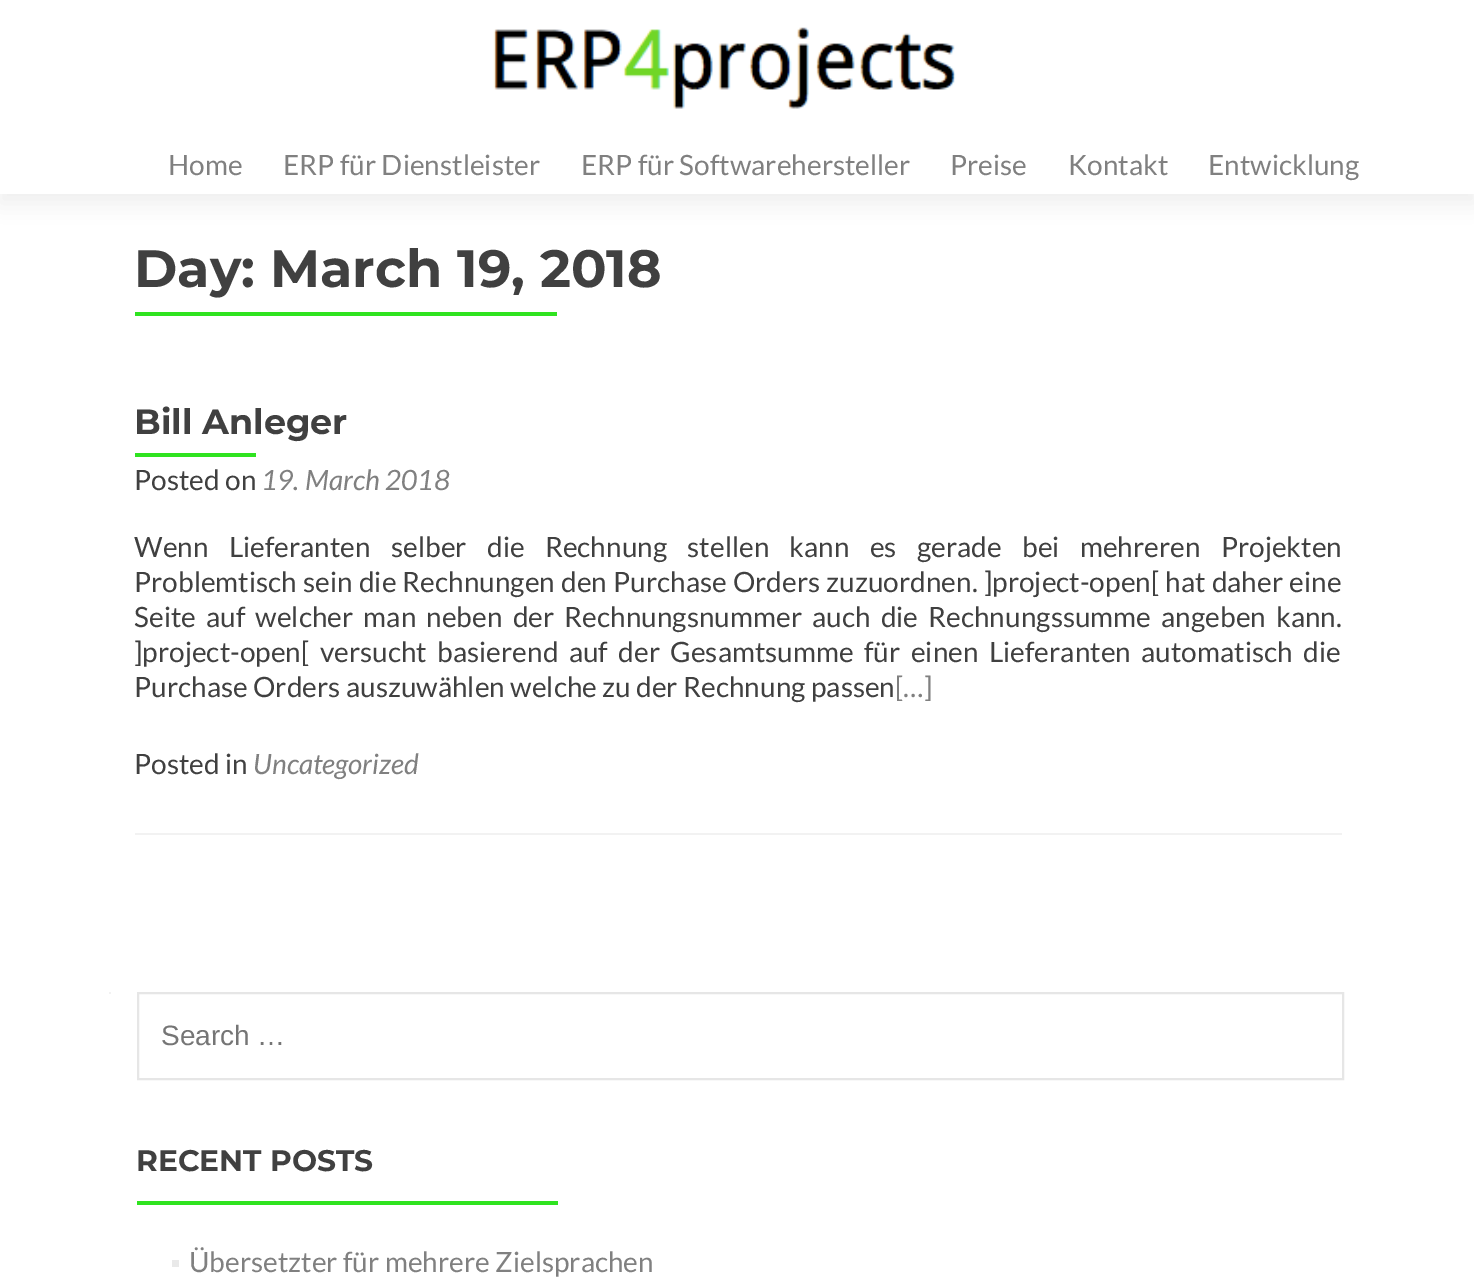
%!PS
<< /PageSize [1474 1286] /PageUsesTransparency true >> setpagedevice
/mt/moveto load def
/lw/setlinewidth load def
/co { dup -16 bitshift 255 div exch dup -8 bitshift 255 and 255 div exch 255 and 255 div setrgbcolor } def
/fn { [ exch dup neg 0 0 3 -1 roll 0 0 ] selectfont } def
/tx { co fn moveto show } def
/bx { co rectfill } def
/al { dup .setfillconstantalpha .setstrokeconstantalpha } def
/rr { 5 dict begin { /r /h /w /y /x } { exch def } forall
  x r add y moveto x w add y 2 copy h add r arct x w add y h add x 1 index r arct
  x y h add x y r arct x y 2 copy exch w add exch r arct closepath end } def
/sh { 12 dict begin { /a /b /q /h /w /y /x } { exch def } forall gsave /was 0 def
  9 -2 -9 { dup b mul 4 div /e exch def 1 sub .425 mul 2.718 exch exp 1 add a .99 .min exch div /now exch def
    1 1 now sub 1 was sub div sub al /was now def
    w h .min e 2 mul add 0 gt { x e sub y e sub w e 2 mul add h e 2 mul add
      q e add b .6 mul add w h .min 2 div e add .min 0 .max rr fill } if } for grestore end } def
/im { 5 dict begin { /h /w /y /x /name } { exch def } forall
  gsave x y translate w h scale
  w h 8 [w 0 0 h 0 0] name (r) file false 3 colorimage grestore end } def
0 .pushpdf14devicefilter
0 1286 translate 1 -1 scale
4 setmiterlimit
0 0 1474 1286 16#FFFFFF bx
16#323232 co
0 9 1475 194 0 9.5 .08 sh
0 0 1474 194 16#FFFFFF bx
(media/1.raw) 493 27 463 82 im
135 312 422 4 16#2FE320 bx
135 833 1207 2 16#F2F2F2 bx
135 453 121 4 16#2FE320 bx
109 992 2 2 16#F2F2F2 bx
16#E6E6E6 co
2 lw
138 993 1205 86 rectstroke
137 1201 421 4 16#2FE320 bx
172 1260 7 7 16#E9E9E9 bx
(Home) 168 175 /Lato-Regular 28 16#808080 tx
(ERP für Dienstleister) 283 175 /Lato-Regular 28 16#808080 tx
(ERP für Softwarehersteller) 581 175 /Lato-Regular 28 16#808080 tx
(Preise) 950 175 /Lato-Regular 28 16#808080 tx
(Kontakt) 1068 175 /Lato-Regular 28 16#808080 tx
(Entwicklung) 1208 175 /Lato-Regular 28 16#808080 tx
(Day: March 19, 2018) 134 287 /Montserrat-Thin 52.5 16#404040 tx
(Bill Anleger) 134 434 /Montserrat-Thin 35 16#404040 tx
(Posted on) 134 490 /Lato-Regular 28 16#404040 tx
(19. March 2018) 261 490 /Lato-Italic 28 16#808080 tx
/Lato-Regular 28 fn
16#404040 co
134 557 mt 14.9 0 32 (Wenn Lieferanten selber die Rechnung stellen kann es gerade bei mehreren Projekten) widthshow
134 592 mt .75 0 32 (Problemtisch sein die Rechnungen den Purchase Orders zuzuordnen. ]project-open[ hat daher eine) widthshow
134 627 mt 4.75 0 32 (Seite auf welcher man neben der Rechnungsnummer auch die Rechnungssumme angeben kann.) widthshow
134 662 mt 5 0 32 (]project-open[ versucht basierend auf der Gesamtsumme für einen Lieferanten automatisch die) widthshow
(Purchase Orders auszuwählen welche zu der Rechnung passen) 134 697 /Lato-Regular 28 16#404040 tx
([…]) 895 697 /Lato-Regular 28 16#808080 tx
(Posted in) 134 774 /Lato-Regular 28 16#404040 tx
(Uncategorized) 253 774 /Lato-Italic 28 16#808080 tx
(Search …) 161 1045 /LiberationSans-Regular 28 16#757575 tx
(RECENT POSTS) 136 1171 /Montserrat-Thin 29.75 16#404040 tx
(Übersetzter für mehrere Zielsprachen) 189 1272 /Lato-Regular 28 16#808080 tx
.poppdf14devicefilter showpage
